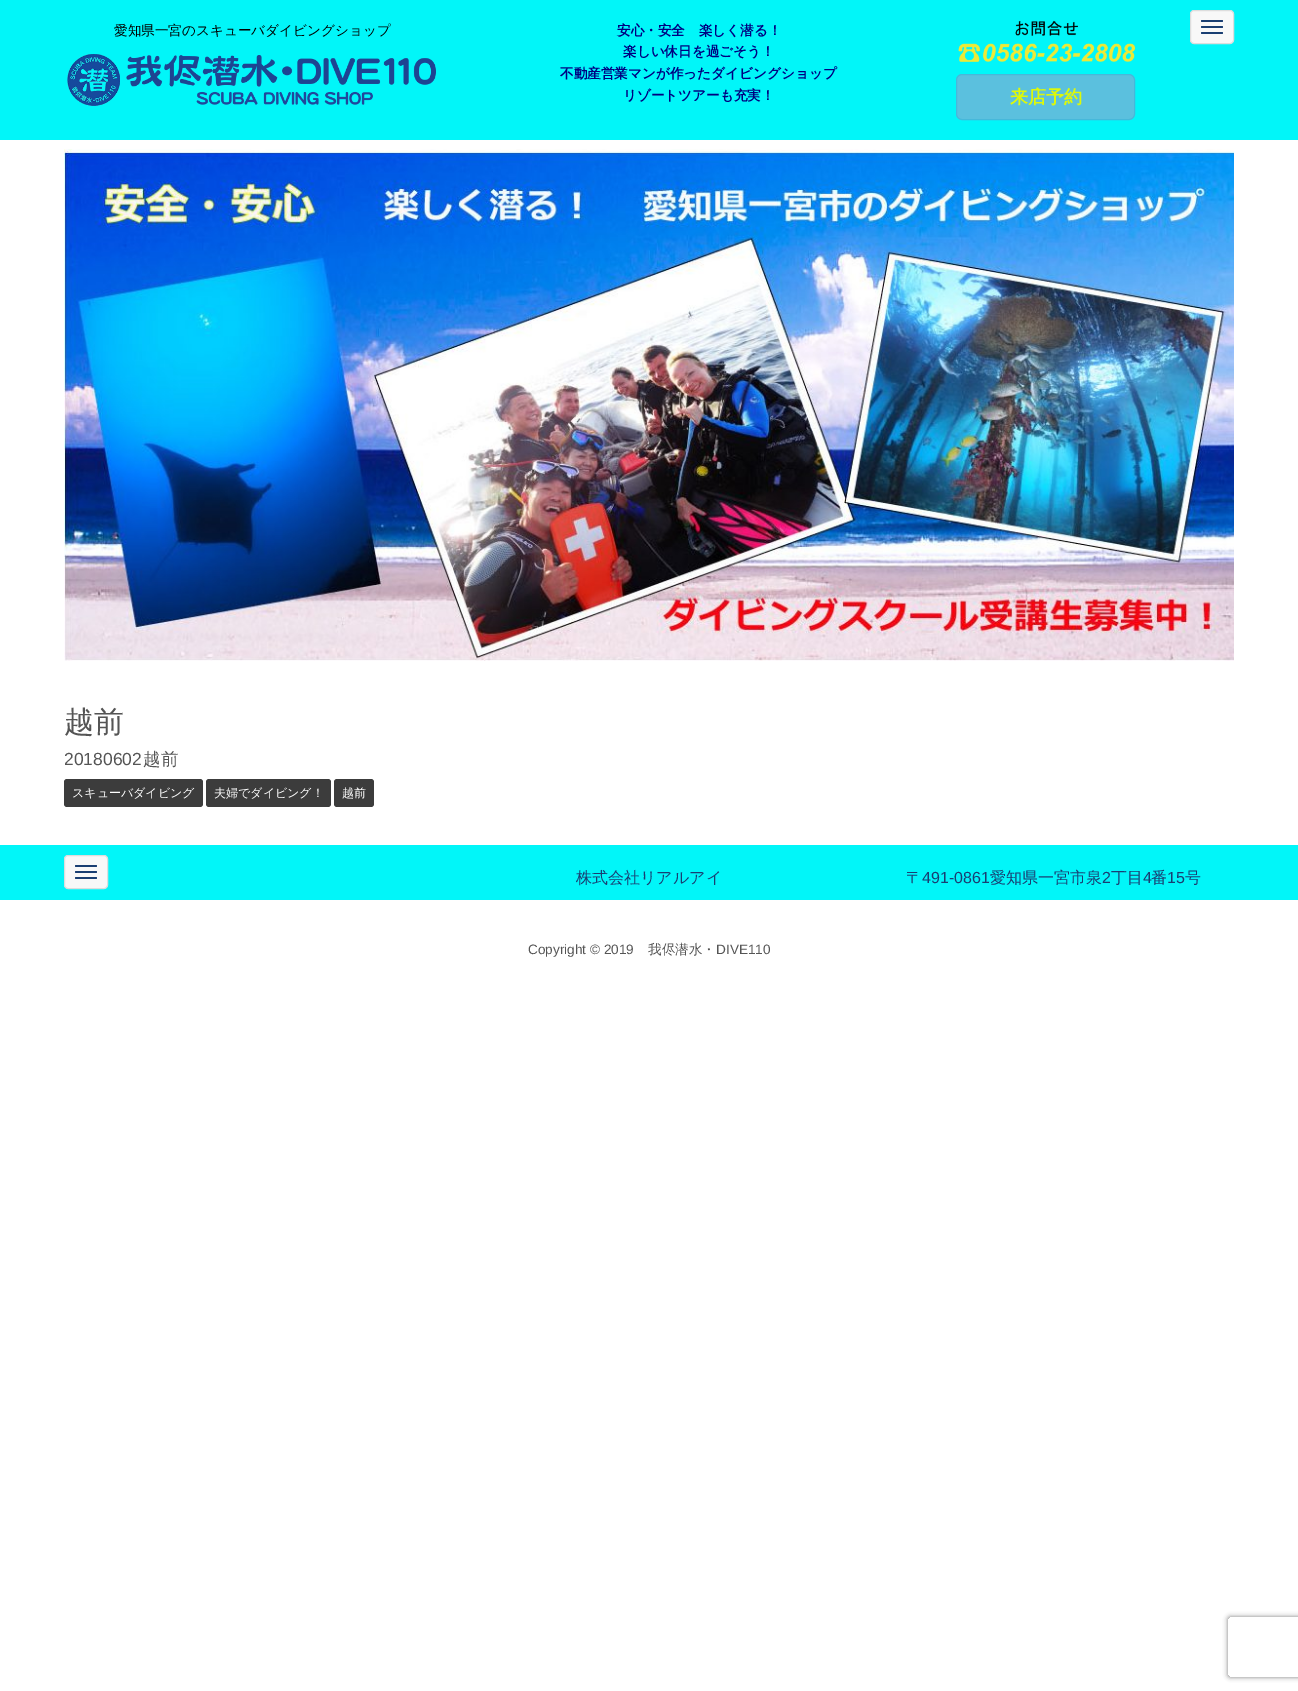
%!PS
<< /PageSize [1298 1691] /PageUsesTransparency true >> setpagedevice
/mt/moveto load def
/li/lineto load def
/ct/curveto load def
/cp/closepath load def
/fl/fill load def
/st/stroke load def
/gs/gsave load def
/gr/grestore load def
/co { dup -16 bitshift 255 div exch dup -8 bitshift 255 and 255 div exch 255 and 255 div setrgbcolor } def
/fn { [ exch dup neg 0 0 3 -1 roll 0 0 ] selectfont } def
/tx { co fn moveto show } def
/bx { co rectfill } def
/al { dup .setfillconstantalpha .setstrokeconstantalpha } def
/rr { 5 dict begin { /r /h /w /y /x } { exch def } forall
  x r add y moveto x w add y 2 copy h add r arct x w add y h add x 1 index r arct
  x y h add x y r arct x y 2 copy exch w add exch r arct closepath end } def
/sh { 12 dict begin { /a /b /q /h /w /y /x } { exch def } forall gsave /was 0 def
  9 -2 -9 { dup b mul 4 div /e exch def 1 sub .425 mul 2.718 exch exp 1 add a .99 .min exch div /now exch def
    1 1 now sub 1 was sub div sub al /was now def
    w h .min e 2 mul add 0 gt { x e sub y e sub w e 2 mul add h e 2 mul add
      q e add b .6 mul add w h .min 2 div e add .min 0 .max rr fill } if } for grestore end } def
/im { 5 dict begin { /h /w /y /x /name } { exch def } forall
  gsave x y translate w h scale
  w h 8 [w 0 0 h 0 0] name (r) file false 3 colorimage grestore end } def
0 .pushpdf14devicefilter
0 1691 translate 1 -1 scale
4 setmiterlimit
0 0 1298 1691 16#FFFFFF bx
0 0 1298 140 16#01F6F9 bx
(media/1.raw) 67 54 369 52 im
(media/2.raw) 958 20 177 42 im
16#5BC0DE co
956.5 74.5 178 45 5.5 rr gs fl gr
16#46B8DA co
st
16#F8F8F8 co
1190.5 10.5 43 33 3.5 rr gs fl gr
16#DDDDDD co
st
16#193E72 co
1201 20 22 2 1 rr fl
1201 26 22 2 1 rr fl
1201 32 22 2 1 rr fl
(media/3.raw) 64 149 1170 512 im
16#3C3C3C co
64 779 139 28 3 rr fl
206 779 125 28 3 rr fl
334 779 40 28 3 rr fl
0 845 1298 55 16#01F6F9 bx
16#F8F8F8 co
64.5 855.5 43 33 3.5 rr gs fl gr
16#DDDDDD co
st
16#193E72 co
75 865 22 2 1 rr fl
75 871 22 2 1 rr fl
75 877 22 2 1 rr fl
gs
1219 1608 mt 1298 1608 li 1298 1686 li 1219 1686 li cp 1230 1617 mt 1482 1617 li 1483 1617 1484 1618 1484 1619 ct 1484 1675 li 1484 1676 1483 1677 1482 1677 ct 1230 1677 li 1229 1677 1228 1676 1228 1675 ct 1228 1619 li 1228 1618 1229 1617 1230 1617 ct cp eoclip newpath
16#808080 co
1228 1617 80 60 2 2.5 1 sh
gr
(愛知県一宮のスキューバダイビングショップ) 114 35 /WenQuanYiZenHei-Medium 13.6 16#000000 tx
(安心・安全　楽しく潜る！) 617 35 /WenQuanYiZenHei-Bold 13.6 16#000080 tx
(楽しい休日を過ごそう！) 623 56 /WenQuanYiZenHei-Bold 13.6 16#000080 tx
(不動産営業マンが作ったダイビングショップ) 560 78 /WenQuanYiZenHei-Bold 13.6 16#000080 tx
(リゾートツアーも充実！) 623 100 /WenQuanYiZenHei-Bold 13.6 16#000080 tx
(来店予約) 1010 103 /WenQuanYiZenHei-Bold 18 16#DDF909 tx
(越前) 64 732 /WenQuanYiZenHei-Medium 30 16#555555 tx
(20180602) 64 765 /LiberationSans-Regular 17.5 16#555555 tx
(越前) 143 765 /WenQuanYiZenHei-Medium 17.5 16#555555 tx
(スキューバダイビング) 72 797 /WenQuanYiZenHei-Medium 12 16#FFFFFF tx
(夫婦でダイビング！) 214 797 /WenQuanYiZenHei-Medium 12 16#FFFFFF tx
(越前) 342 797 /WenQuanYiZenHei-Medium 12 16#FFFFFF tx
(株式会社リアルアイ) 576 883 /WenQuanYiZenHei-Medium 16 16#193E72 tx
(〒) 906 883 /WenQuanYiZenHei-Medium 16 16#193E72 tx
(491-0861) 922 883 /LiberationSans-Regular 16 16#193E72 tx
(愛知県一宮市泉) 990 883 /WenQuanYiZenHei-Medium 16 16#193E72 tx
(2) 1102 883 /LiberationSans-Regular 16 16#193E72 tx
(丁目) 1111 883 /WenQuanYiZenHei-Medium 16 16#193E72 tx
(4) 1143 883 /LiberationSans-Regular 16 16#193E72 tx
(番) 1151 883 /WenQuanYiZenHei-Medium 16 16#193E72 tx
(15) 1167 883 /LiberationSans-Regular 16 16#193E72 tx
(号) 1185 883 /WenQuanYiZenHei-Medium 16 16#193E72 tx
(Copyright © 2019) 528 954 /LiberationSans-Regular 13.6 16#555555 tx
(我侭潜水・) 648 954 /WenQuanYiZenHei-Medium 13.6 16#555555 tx
(DIVE110) 716 954 /LiberationSans-Regular 13.6 16#555555 tx
.poppdf14devicefilter showpage
